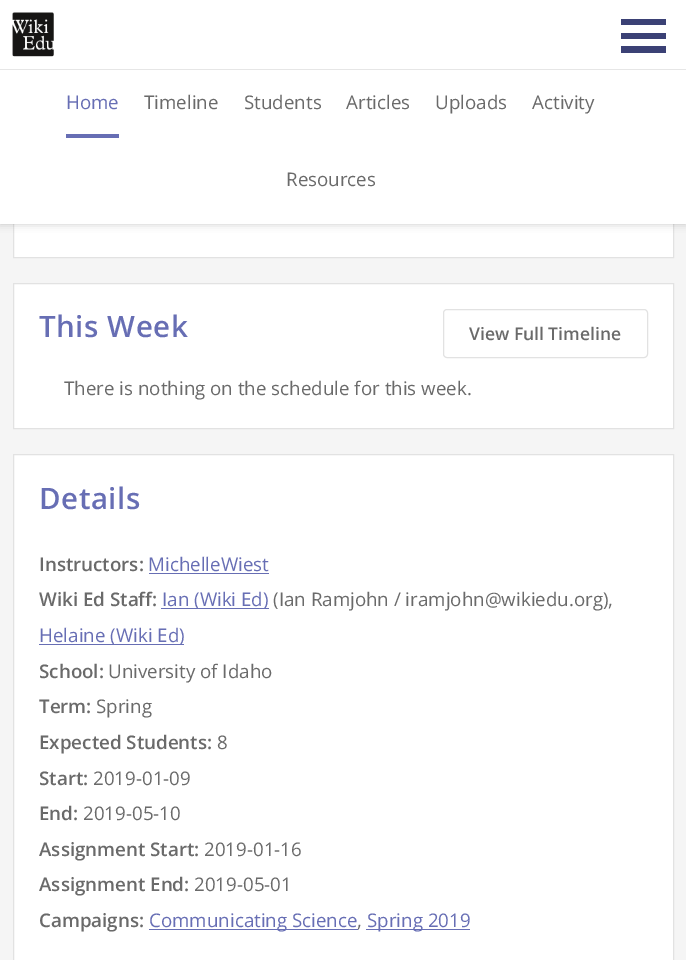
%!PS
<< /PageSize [686 960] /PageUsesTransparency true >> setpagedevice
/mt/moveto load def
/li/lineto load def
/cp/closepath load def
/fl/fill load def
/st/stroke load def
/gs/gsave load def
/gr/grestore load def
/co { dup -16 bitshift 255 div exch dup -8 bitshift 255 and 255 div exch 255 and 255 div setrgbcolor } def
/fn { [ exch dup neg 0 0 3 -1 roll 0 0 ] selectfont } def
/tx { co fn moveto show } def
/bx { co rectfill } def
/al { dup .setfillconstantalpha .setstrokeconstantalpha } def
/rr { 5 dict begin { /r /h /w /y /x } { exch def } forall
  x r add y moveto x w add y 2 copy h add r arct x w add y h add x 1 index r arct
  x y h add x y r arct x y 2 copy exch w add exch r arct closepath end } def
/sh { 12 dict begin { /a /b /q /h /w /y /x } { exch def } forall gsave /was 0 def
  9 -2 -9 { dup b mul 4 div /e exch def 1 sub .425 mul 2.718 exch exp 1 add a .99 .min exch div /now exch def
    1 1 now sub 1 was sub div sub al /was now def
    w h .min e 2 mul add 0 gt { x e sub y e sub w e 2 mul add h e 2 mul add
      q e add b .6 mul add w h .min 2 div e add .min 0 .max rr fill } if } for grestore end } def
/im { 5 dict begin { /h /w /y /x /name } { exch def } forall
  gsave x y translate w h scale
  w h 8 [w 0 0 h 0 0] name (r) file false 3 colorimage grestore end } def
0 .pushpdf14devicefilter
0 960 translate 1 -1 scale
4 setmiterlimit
0 0 686 960 16#F5F5F5 bx
14 224 659 33 16#FFFFFF bx
16#E2E2E2 co
13.5 -.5 660 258 rectstroke
16#000000 co
0 0 686 224 0 4 .2 sh
0 0 686 69 16#FFFFFF bx
0 69 686 1 16#E6E6E6 bx
(media/1.raw) 12 12 42 45 im
621 19 45 6 16#3B4175 bx
621 33 45 6 16#3B4175 bx
621 46 45 7 16#3B4175 bx
0 70 686 154 16#FFFFFF bx
66 134 53 4 16#676EB4 bx
16#FFFFFF co
13.5 283.5 mt 673.5 283.5 li 673.5 428.5 li 13.5 428.5 li cp gs fl gr
16#E2E2E2 co
st
443.5 309.5 204 48 3.5 rr st
16#FFFFFF co
13.5 454.5 mt 673.5 454.5 li 673.5 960.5 li 13.5 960.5 li cp gs fl gr
16#E2E2E2 co
st
149 573 120 1 16#676EB4 bx
161 608 108 1 16#676EB4 bx
39 644 145 1 16#676EB4 bx
149 929 209 1 16#676EB4 bx
366 929 104 1 16#676EB4 bx
(Home) 66 109 /OpenSans-Regular 18.75 16#676EB4 tx
(Timeline) 144 109 /OpenSans-Regular 18.75 16#6A6A6A tx
(Students) 244 109 /OpenSans-Regular 18.75 16#6A6A6A tx
(Articles) 346 109 /OpenSans-Regular 18.75 16#6A6A6A tx
(Uploads) 435 109 /OpenSans-Regular 18.75 16#6A6A6A tx
(Activity) 532 109 /OpenSans-Regular 18.75 16#6A6A6A tx
(Resources) 286 186 /OpenSans-Regular 18.75 16#6A6A6A tx
/OpenSans-SemiBold 29.5 fn
16#676EB4 co
39 337 mt .5 0 (This Week) ashow
(View Full Timeline) 469 340 /OpenSans-SemiBold 17.5 16#6A6A6A tx
(There is nothing on the schedule for this week.) 64 395 /OpenSans-Regular 18.75 16#6A6A6A tx
/OpenSans-SemiBold 29.5 fn
16#676EB4 co
39 509 mt .5 0 (Details) ashow
(Instructors:) 39 571 /OpenSans-SemiBold 18.75 16#6A6A6A tx
(MichelleWiest) 148 571 /OpenSans-Regular 18.75 16#676EB4 tx
(Wiki Ed Staff:) 39 606 /OpenSans-SemiBold 18.75 16#6A6A6A tx
(Ian \(Wiki Ed\)) 162 606 /OpenSans-Regular 18.75 16#676EB4 tx
(\(Ian Ramjohn / iramjohn@wikiedu.org\),) 273 606 /OpenSans-Regular 18.75 16#6A6A6A tx
(Helaine \(Wiki Ed\)) 39 642 /OpenSans-Regular 18.75 16#676EB4 tx
(School:) 39 678 /OpenSans-SemiBold 18.75 16#6A6A6A tx
(University of Idaho) 108 678 /OpenSans-Regular 18.75 16#6A6A6A tx
(Term:) 39 713 /OpenSans-SemiBold 18.75 16#6A6A6A tx
(Spring) 96 713 /OpenSans-Regular 18.75 16#6A6A6A tx
(Expected Students:) 39 749 /OpenSans-SemiBold 18.75 16#6A6A6A tx
(8) 217 749 /OpenSans-Regular 18.75 16#6A6A6A tx
(Start:) 39 785 /OpenSans-SemiBold 18.75 16#6A6A6A tx
(2019-01-09) 93 785 /OpenSans-Regular 18.75 16#6A6A6A tx
(End:) 39 820 /OpenSans-SemiBold 18.75 16#6A6A6A tx
(2019-05-10) 83 820 /OpenSans-Regular 18.75 16#6A6A6A tx
(Assignment Start:) 39 856 /OpenSans-SemiBold 18.75 16#6A6A6A tx
(2019-01-16) 204 856 /OpenSans-Regular 18.75 16#6A6A6A tx
(Assignment End:) 39 891 /OpenSans-SemiBold 18.75 16#6A6A6A tx
(2019-05-01) 194 891 /OpenSans-Regular 18.75 16#6A6A6A tx
(Campaigns:) 39 927 /OpenSans-SemiBold 18.75 16#6A6A6A tx
(Communicating Science) 149 927 /OpenSans-Regular 18.75 16#676EB4 tx
(,) 357 927 /OpenSans-Regular 18.75 16#6A6A6A tx
(Spring 2019) 367 927 /OpenSans-Regular 18.75 16#676EB4 tx
.poppdf14devicefilter showpage
